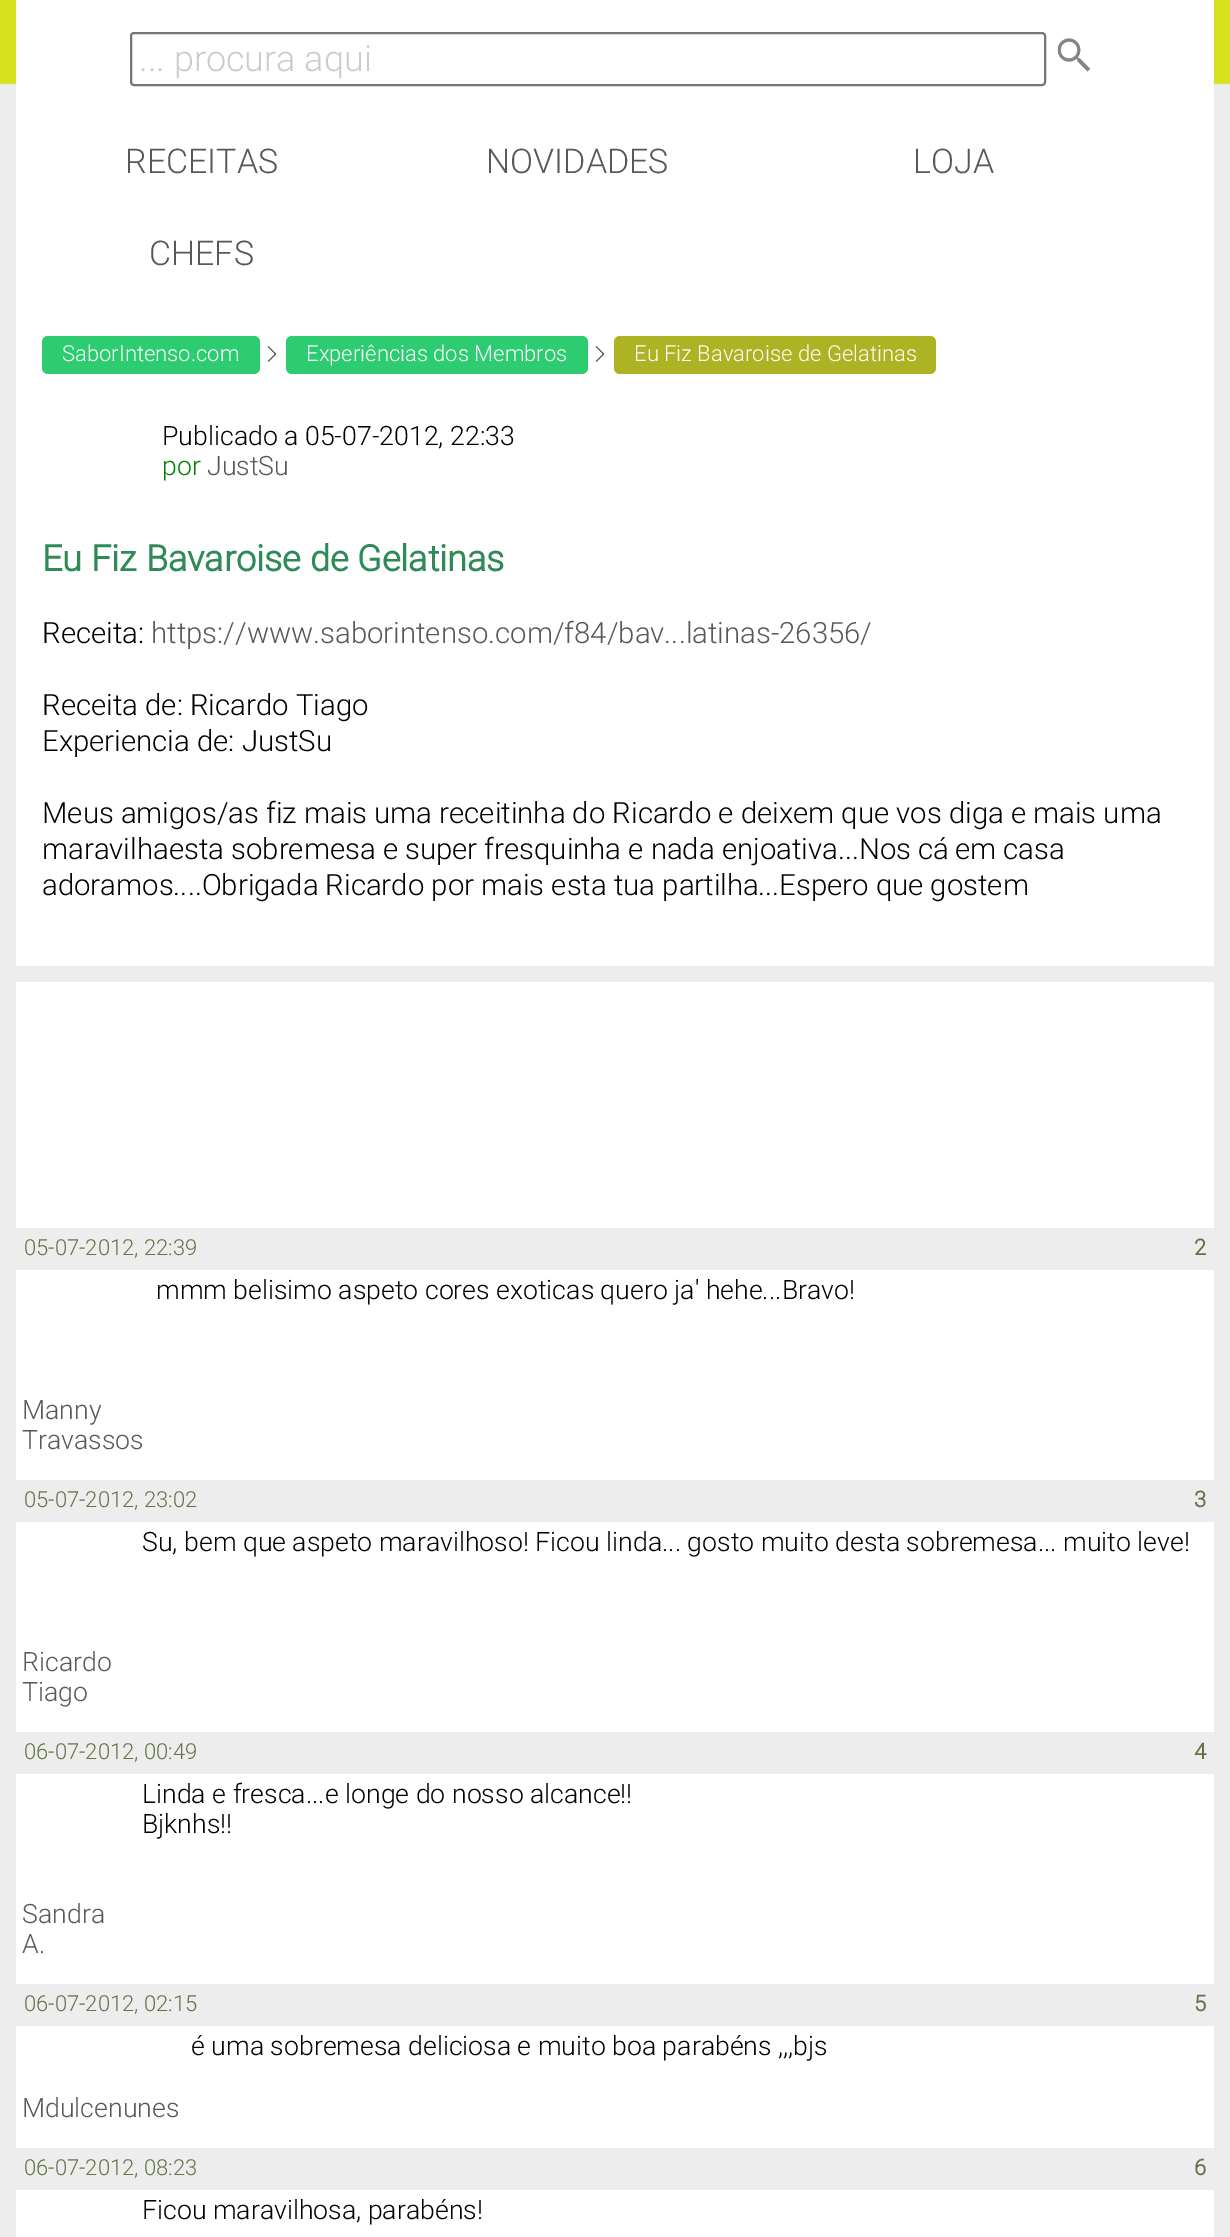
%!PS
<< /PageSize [1230 2237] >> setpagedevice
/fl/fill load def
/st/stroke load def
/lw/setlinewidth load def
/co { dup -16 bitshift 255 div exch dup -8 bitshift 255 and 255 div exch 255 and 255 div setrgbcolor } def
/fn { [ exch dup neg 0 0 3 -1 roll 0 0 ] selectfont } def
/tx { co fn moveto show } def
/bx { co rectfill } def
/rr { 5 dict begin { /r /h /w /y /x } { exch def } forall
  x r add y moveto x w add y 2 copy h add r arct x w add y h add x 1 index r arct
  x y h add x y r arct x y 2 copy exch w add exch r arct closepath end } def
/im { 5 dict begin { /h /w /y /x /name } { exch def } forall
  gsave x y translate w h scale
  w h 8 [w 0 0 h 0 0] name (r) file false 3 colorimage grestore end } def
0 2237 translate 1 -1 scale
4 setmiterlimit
0 0 1230 2237 16#EDEDED bx
(media/1.raw) 0 0 1230 85 im
16 0 1198 1228 16#FFFFFF bx
16#767676 co
2 lw
131 33 914 52 3 rr st
(media/2.raw) 1057 38 34 34 im
16#2ECC71 co
42 336 218 38 6 rr fl
(media/3.raw) 267 346 10 16 im
286 336 302 38 6 rr fl
(media/3.raw) 595 346 10 16 im
16#ADB423 co
614 336 322 38 6 rr fl
16 966 1198 16 16#EDEDED bx
16 1270 1198 210 16#FFFFFF bx
16 1522 1198 210 16#FFFFFF bx
16 1774 1198 210 16#FFFFFF bx
16 2026 1198 122 16#FFFFFF bx
16 2190 1198 47 16#FFFFFF bx
(... procura aqui) 139 71 /Roboto-Light 36 16#CCCCCC tx
(RECEITAS) 125 173 /Roboto-Light 34 16#585858 tx
(NOVIDADES) 486 173 /Roboto-Light 34 16#585858 tx
(LOJA) 913 173 /Roboto-Light 34 16#585858 tx
(CHEFS) 149 265 /Roboto-Light 34 16#585858 tx
(SaborIntenso.com) 62 361 /Roboto-Light 22 16#FFFFFF tx
(Experiências dos Membros) 306 361 /Roboto-Light 22 16#FFFFFF tx
(Eu Fiz Bavaroise de Gelatinas) 634 361 /Roboto-Light 22 16#FFFFFF tx
(Publicado a 05-07-2012, 22:33) 162 445 /Roboto-Light 26.65 16#000000 tx
(por) 162 475 /Roboto-Light 26.65 16#008000 tx
(JustSu) 207 475 /Roboto-Light 26.65 16#585858 tx
(Eu Fiz Bavaroise de Gelatinas) 42 571 /Roboto-Bold 36 16#2E8B57 tx
(Receita:) 42 643 /Roboto-Light 29.35 16#000000 tx
(https://www.saborintenso.com/f84/bav...latinas-26356/) 151 643 /Roboto-Light 29.35 16#585858 tx
(Receita de: Ricardo Tiago) 42 715 /Roboto-Light 29.35 16#000000 tx
(Experiencia de: JustSu) 42 751 /Roboto-Light 29.35 16#000000 tx
(Meus amigos/as fiz mais uma receitinha do Ricardo e deixem que vos diga e mais uma) 42 823 /Roboto-Light 29.35 16#000000 tx
(maravilhaesta sobremesa e super fresquinha e nada enjoativa...Nos cá) 42 859 /Roboto-Light 29.35 16#000000 tx
(em casa) 955 859 /Roboto-Light 29.35 16#000000 tx
(adoramos....Obrigada Ricardo por mais esta tua partilha) 42 895 /Roboto-Light 29.35 16#000000 tx
(...Espero que gostem) 758 895 /Roboto-Light 29.35 16#000000 tx
(05-07-2012, 22:39) 24 1255 /Roboto-Light 22 16#637246 tx
(2) 1194 1255 /Roboto-Bold 22 16#637246 tx
(mmm belisimo aspeto cores exoticas quero ja' hehe...Bravo!) 156 1299 /Roboto-Light 26.65 16#000000 tx
(Manny) 22 1419 /Roboto-Light 26.65 16#585858 tx
(Travassos) 22 1449 /Roboto-Light 26.65 16#585858 tx
(05-07-2012, 23:02) 24 1507 /Roboto-Light 22 16#637246 tx
(3) 1194 1507 /Roboto-Bold 22 16#637246 tx
(Su, bem que aspeto maravilhoso! Ficou linda... gosto muito desta sobremesa... muito leve!) 142 1551 /Roboto-Light 26.65 16#000000 tx
(Ricardo) 22 1671 /Roboto-Light 26.65 16#585858 tx
(Tiago) 22 1701 /Roboto-Light 26.65 16#585858 tx
(06-07-2012, 00:49) 24 1759 /Roboto-Light 22 16#637246 tx
(4) 1194 1759 /Roboto-Bold 22 16#637246 tx
(Linda e fresca...e longe do nosso alcance!!) 142 1803 /Roboto-Light 26.65 16#000000 tx
(Bjknhs!!) 142 1833 /Roboto-Light 26.65 16#000000 tx
(Sandra) 22 1923 /Roboto-Light 26.65 16#585858 tx
(A.) 22 1953 /Roboto-Light 26.65 16#585858 tx
(06-07-2012, 02:15) 24 2011 /Roboto-Light 22 16#637246 tx
(5) 1194 2011 /Roboto-Bold 22 16#637246 tx
(é uma sobremesa deliciosa e muito boa parabéns ,,,bjs) 191 2055 /Roboto-Light 26.65 16#000000 tx
(Mdulcenunes) 22 2117 /Roboto-Light 26.65 16#585858 tx
(06-07-2012, 08:23) 24 2175 /Roboto-Light 22 16#637246 tx
(6) 1194 2175 /Roboto-Bold 22 16#637246 tx
(Ficou maravilhosa, parabéns!) 142 2219 /Roboto-Light 26.65 16#000000 tx
showpage
